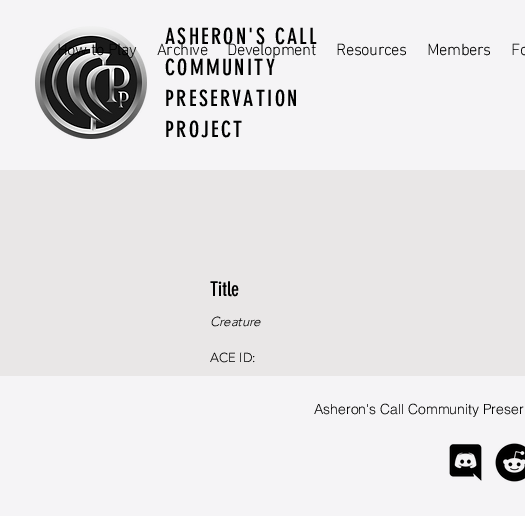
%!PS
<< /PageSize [525 516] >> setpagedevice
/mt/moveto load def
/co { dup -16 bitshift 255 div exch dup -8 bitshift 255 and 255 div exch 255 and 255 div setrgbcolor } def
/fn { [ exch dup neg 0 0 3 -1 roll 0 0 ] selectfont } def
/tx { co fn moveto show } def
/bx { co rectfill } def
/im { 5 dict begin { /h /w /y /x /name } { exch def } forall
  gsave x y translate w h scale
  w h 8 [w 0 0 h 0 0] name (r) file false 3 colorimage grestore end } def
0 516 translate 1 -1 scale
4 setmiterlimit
0 0 525 516 16#E9E7E7 bx
0 0 525 170 16#F5F4F6 bx
(media/1.raw) 35 26 112 113 im
0 376 525 140 16#F5F4F6 bx
(media/2.raw) 449 444 33 37 im
(media/3.raw) 495 443 30 39 im
/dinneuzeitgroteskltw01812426-Regular 22 fn
16#000000 co
165 44 mt 2.25 0 (ASHERON'S CALL) ashow
165 75 mt 2.25 0 (COMMUNITY) ashow
165 106 mt 2.25 0 (PRESERVATION) ashow
165 137 mt 2.25 0 (PROJECT) ashow
(How to Play) 57 55 /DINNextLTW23-Bold 16 16#000000 tx
(Archive) 157 55 /DINNextLTW23-Bold 16 16#000000 tx
(Development) 227 55 /DINNextLTW23-Bold 16 16#000000 tx
(Resources) 336 55 /DINNextLTW23-Bold 16 16#000000 tx
(Members) 427 55 /DINNextLTW23-Bold 16 16#000000 tx
(Fo) 511 55 /DINNextLTW23-Bold 16 16#000000 tx
(Title) 210 296 /dinneuzeitgroteskltw01812426-Regular 20 16#000000 tx
(Creature) 210 326 /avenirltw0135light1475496-LightItalic 13 16#000000 tx
(ACE ID:) 210 362 /avenirltw0135light1475496-Light 13 16#000000 tx
(Asheron's Call Community Preser) 314 414 /helvetica-Light 14 16#000000 tx
showpage
